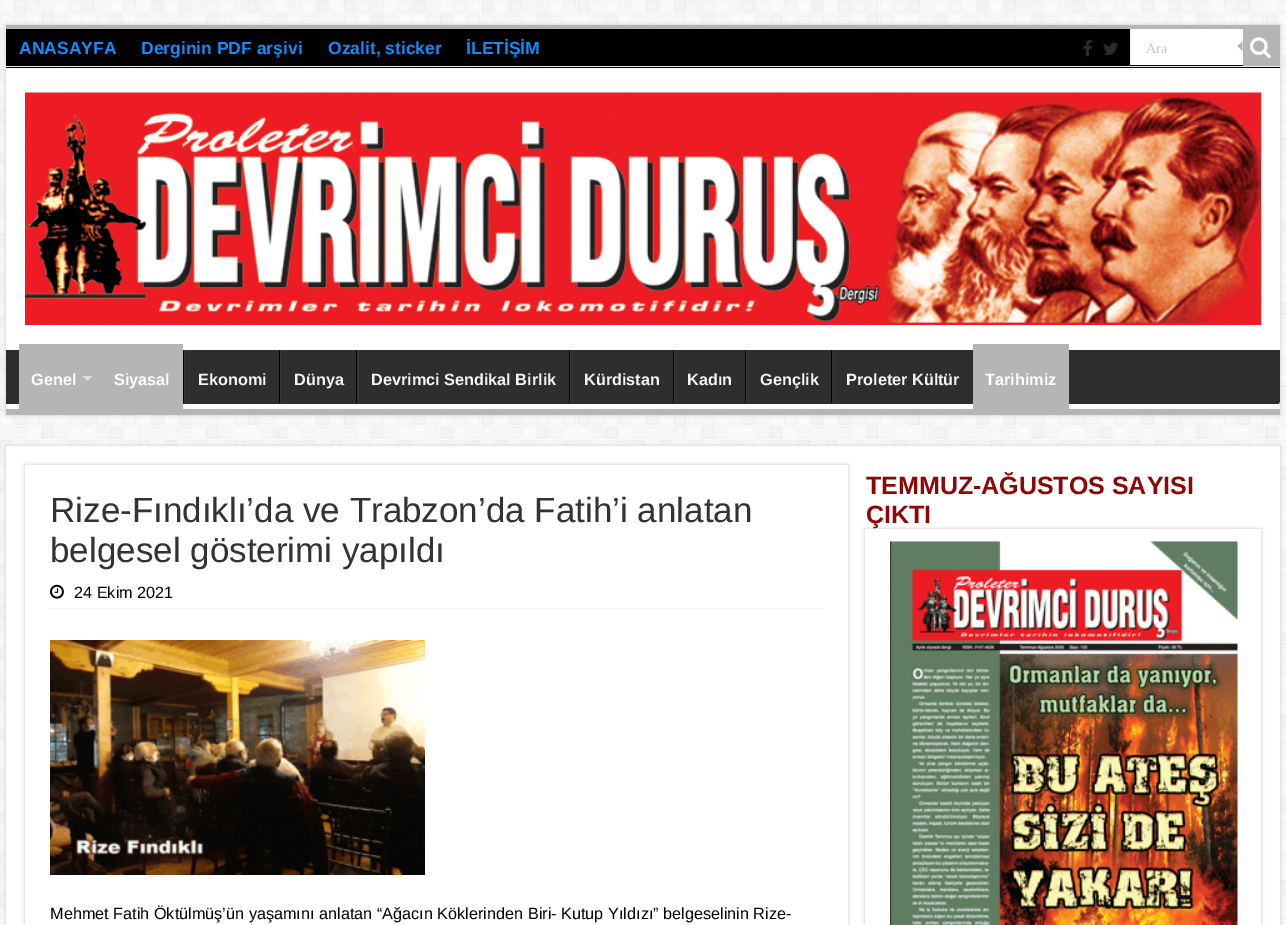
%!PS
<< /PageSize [1286 925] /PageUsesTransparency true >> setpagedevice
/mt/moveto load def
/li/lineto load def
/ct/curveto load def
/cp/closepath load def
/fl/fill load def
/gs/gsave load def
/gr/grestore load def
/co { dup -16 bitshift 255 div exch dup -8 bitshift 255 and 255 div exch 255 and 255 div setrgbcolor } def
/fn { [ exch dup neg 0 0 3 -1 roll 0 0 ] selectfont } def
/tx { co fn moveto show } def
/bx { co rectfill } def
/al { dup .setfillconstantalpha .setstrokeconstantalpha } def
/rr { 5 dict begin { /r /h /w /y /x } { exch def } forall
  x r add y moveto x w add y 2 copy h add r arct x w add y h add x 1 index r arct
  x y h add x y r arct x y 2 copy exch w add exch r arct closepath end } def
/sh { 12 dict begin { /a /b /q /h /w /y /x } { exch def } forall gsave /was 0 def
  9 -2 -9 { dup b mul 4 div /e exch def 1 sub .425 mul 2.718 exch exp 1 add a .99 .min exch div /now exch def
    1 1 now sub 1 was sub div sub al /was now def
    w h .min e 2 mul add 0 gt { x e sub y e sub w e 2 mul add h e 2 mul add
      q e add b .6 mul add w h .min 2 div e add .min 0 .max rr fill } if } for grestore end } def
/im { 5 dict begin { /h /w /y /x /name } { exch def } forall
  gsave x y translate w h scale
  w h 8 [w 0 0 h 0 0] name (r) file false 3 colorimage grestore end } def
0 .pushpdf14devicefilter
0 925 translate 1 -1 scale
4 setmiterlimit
0 0 1286 925 16#FFFFFF bx
(media/1.raw) 0 0 1286 925 im
16#CACACA co
6 25 1274 390 0 2 1 sh
6 68 1274 282 16#FFFFFF bx
6 25 1274 4 16#B5B5B5 bx
6 29 1274 39 16#000000 bx
6 66 1274 1 16#ECECEC bx
(media/2.raw) 1083 40 9 17 im
(media/3.raw) 1103 42 15 13 im
1131 29 112 36 16#FFFFFF bx
1130 29 1 36 16#ECECEC bx
1243 29 37 37 16#B5B5B5 bx
(media/4.raw) 1250 37 21 22 im
1242.5 41 mt 1242.5 51 li 1237.5 46 li cp fl
(media/5.raw) 25 92 1237 233 im
6 350 1274 54 16#2E2E2E bx
gs
6 350 1274 59 rectclip
16#FCFCFC co
-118 226 mt 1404 226 li 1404 532 li -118 532 li cp 5 342 mt 1279 342 li 1279 342 1280 343 1280 344 ct 1280 402 li 1280 403 1279 404 1279 404 ct 5 404 li 4 404 4 403 4 402 ct 4 344 li 4 343 4 342 5 342 ct cp eofill
gr
6 409 1274 6 16#B5B5B5 bx
19 344 164 65 16#B5B5B5 bx
16#DDDDDD co
82.5 376 mt 92.5 376 li 87.5 381 li cp fl
183 350 1 53 16#050405 bx
184 350 1 53 16#383838 bx
279 350 1 53 16#050405 bx
280 350 1 53 16#383838 bx
356 350 1 53 16#050405 bx
358 350 1 53 16#383838 bx
569 350 1 53 16#050405 bx
570 350 1 53 16#383838 bx
673 350 1 53 16#050405 bx
674 350 1 53 16#383838 bx
745 350 1 53 16#050405 bx
746 350 1 53 16#383838 bx
831 350 1 53 16#050405 bx
833 350 1 53 16#383838 bx
973 344 96 65 16#B5B5B5 bx
16#CACACA co
6 446 1274 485 0 2 1 sh
6 446 1274 479 16#FFFFFF bx
16#CACACA co
25 465 823 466 0 2 1 sh
25 465 823 460 16#FFFFFF bx
50 608 773 1 16#F2F2F2 bx
(media/6.raw) 50 584 14 15 im
(media/7.raw) 50 640 375 235 im
gs
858 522 mt 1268 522 li 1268 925 li 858 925 li cp 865 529 mt 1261 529 li 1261 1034 li 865 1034 li cp eoclip newpath
16#CACACA co
865 529 396 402 0 2 1 sh
gr
(media/8.raw) 890 541 348 384 im
(ANASAYFA) 19 54 /LiberationSans-Bold 17.5 16#0D8EFF tx
(Derginin PDF arşivi) 141 54 /LiberationSans-Bold 17.5 16#0D8EFF tx
(Ozalit, sticker) 328 54 /LiberationSans-Bold 17.5 16#0D8EFF tx
(İLETİŞİM) 466 54 /LiberationSans-Bold 17.5 16#0D8EFF tx
(Ara) 1146 53 /LiberationSerif-Regular 14 16#C5C5C5 tx
(Genel) 31 385 /LiberationSans-Bold 16.25 16#FFFFFF tx
(Siyasal) 114 385 /LiberationSans-Bold 16.25 16#FFFFFF tx
(Ekonomi) 198 385 /LiberationSans-Bold 16.25 16#F5F5F5 tx
(Dünya) 294 385 /LiberationSans-Bold 16.25 16#F5F5F5 tx
(Devrimci Sendikal Birlik) 371 385 /LiberationSans-Bold 16.25 16#F5F5F5 tx
(Kürdistan) 584 385 /LiberationSans-Bold 16.25 16#F5F5F5 tx
(Kadın) 687 385 /LiberationSans-Bold 16.25 16#F5F5F5 tx
(Gençlik) 760 385 /LiberationSans-Bold 16.25 16#F5F5F5 tx
(Proleter Kültür) 846 385 /LiberationSans-Bold 16.25 16#F5F5F5 tx
(Tarihimiz) 985 385 /LiberationSans-Bold 16.25 16#FFFFFF tx
(Rize-Fındıklı’da ve Trabzon’da Fatih’i anlatan) 50 522 /LiberationSans-Regular 35 16#333333 tx
(belgesel gösterimi yapıldı) 50 562 /LiberationSans-Regular 35 16#333333 tx
(24 Ekim 2021) 74 598 /LiberationSans-Regular 16.25 16#000000 tx
(Mehmet Fatih Öktülmüş’ün yaşamını anlatan “Ağacın Köklerinden Biri- Kutup Yıldızı” belgeselinin Rize-) 50 919 /LiberationSans-Regular 16.25 16#000000 tx
(TEMMUZ-AĞUSTOS SAYISI) 866 494 /LiberationSans-Bold 25 16#8F0606 tx
(ÇIKTI) 866 523 /LiberationSans-Bold 25 16#8F0606 tx
.poppdf14devicefilter showpage
